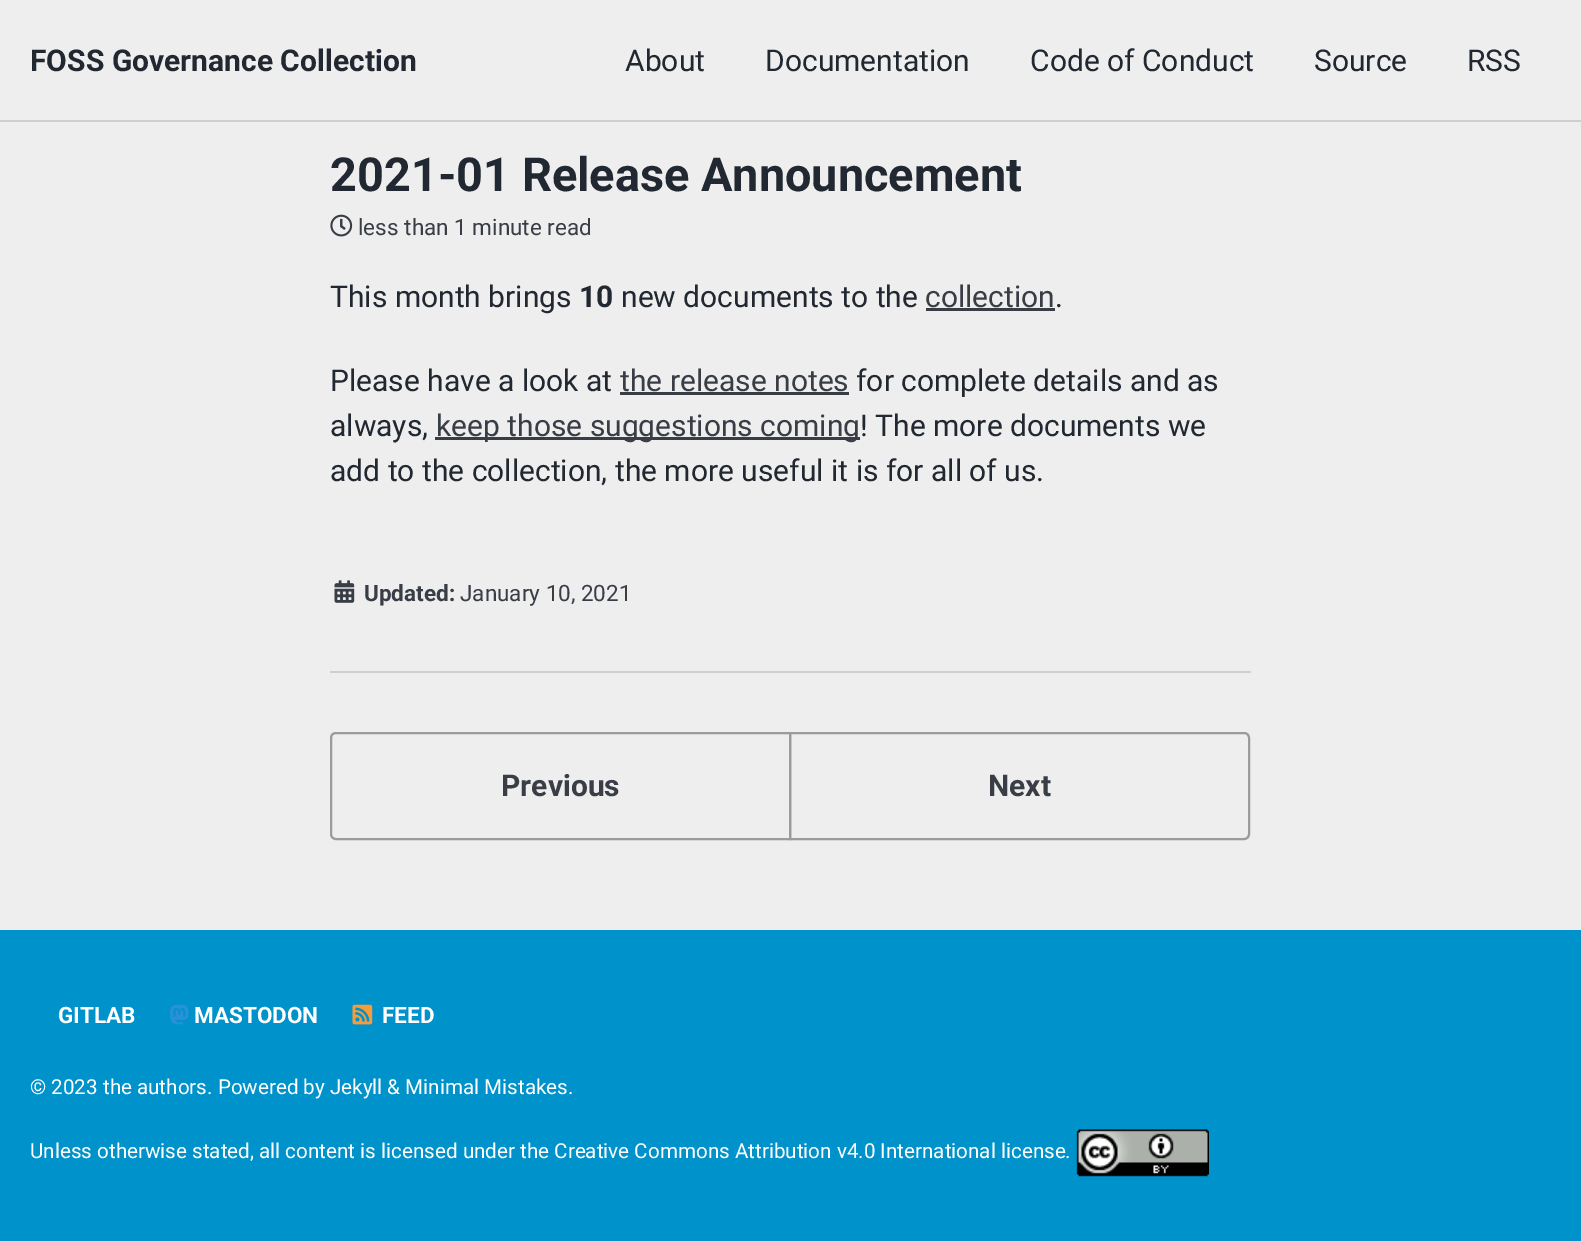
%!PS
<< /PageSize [1581 1241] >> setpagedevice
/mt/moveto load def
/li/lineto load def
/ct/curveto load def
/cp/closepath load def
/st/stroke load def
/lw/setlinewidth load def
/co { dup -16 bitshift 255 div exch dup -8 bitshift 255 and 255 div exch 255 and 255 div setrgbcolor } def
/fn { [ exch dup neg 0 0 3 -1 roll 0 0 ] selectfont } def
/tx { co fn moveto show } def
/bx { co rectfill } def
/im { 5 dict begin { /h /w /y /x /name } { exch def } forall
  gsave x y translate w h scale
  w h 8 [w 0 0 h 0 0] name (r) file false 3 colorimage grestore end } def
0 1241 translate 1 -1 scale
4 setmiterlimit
0 0 1581 1241 16#EEEEEE bx
0 120 1581 2 16#CECFD1 bx
(media/1.raw) 330 214 23 23 im
926 308 129 3 16#393E46 bx
620 392 229 3 16#393E46 bx
435 437 425 3 16#393E46 bx
(media/2.raw) 334 580 21 23 im
330 671 921 2 16#CECFD1 bx
16#9B9B9D co
2 lw
336 733 mt 790 733 li 790 839 li 336 839 li 333 839 331 837 331 834 ct 331 738 li 331 735 333 733 336 733 ct cp st
790 733 mt 1244 733 li 1247 733 1249 735 1249 738 ct 1249 834 li 1249 837 1247 839 1244 839 ct 790 839 li cp st
0 930 1581 311 16#0092CA bx
(media/3.raw) 170 1004 19 21 im
(media/4.raw) 352 1004 21 21 im
(media/5.raw) 1076 1129 133 48 im
(FOSS Governance Collection) 30 71 /Roboto-Bold 30 16#222831 tx
(About) 625 71 /Roboto-Regular 30 16#222831 tx
(Documentation) 765 71 /Roboto-Regular 30 16#222831 tx
(Code of Conduct) 1030 71 /Roboto-Regular 30 16#222831 tx
(Source) 1314 71 /Roboto-Regular 30 16#222831 tx
(RSS) 1467 71 /Roboto-Regular 30 16#222831 tx
(2021-01 Release Announcement) 330 191 /Roboto-Bold 46.9 16#222831 tx
(less than 1 minute read) 358 235 /Roboto-Regular 22.5 16#393E46 tx
(This month brings) 330 307 /Roboto-Regular 30 16#222831 tx
(10) 579 307 /Roboto-Bold 30 16#222831 tx
(new documents to the) 621 307 /Roboto-Regular 30 16#222831 tx
(collection) 925 307 /Roboto-Regular 30 16#393E46 tx
(.) 1055 307 /Roboto-Regular 30 16#222831 tx
(Please have a look at) 330 391 /Roboto-Regular 30 16#222831 tx
(the release notes) 620 391 /Roboto-Regular 30 16#393E46 tx
(for complete details and as) 856 391 /Roboto-Regular 30 16#222831 tx
(always,) 330 436 /Roboto-Regular 30 16#222831 tx
(keep those suggestions coming) 436 436 /Roboto-Regular 30 16#393E46 tx
(! The more documents we) 860 436 /Roboto-Regular 30 16#222831 tx
(add to the collection, the more useful it is for all of us.) 330 481 /Roboto-Regular 30 16#222831 tx
(Updated:) 364 601 /Roboto-Bold 22.5 16#393E46 tx
(January 10, 2021) 460 601 /Roboto-Regular 22.5 16#393E46 tx
(Previous) 501 796 /Roboto-Bold 30 16#393E46 tx
(Next) 988 796 /Roboto-Bold 30 16#393E46 tx
(GITLAB) 58 1023 /Roboto-Bold 22.5 16#FFFFFF tx
(MASTODON) 194 1023 /Roboto-Bold 22.5 16#FFFFFF tx
(FEED) 382 1023 /Roboto-Bold 22.5 16#FFFFFF tx
(© 2023 the authors. Powered by Jekyll & Minimal Mistakes.) 30 1094 /Roboto-Regular 20.62 16#FFFFFF tx
(Unless otherwise stated, all content is licensed under the Creative Commons Attribution v4.0 International license.) 30 1158 /Roboto-Regular 20.62 16#FFFFFF tx
showpage
